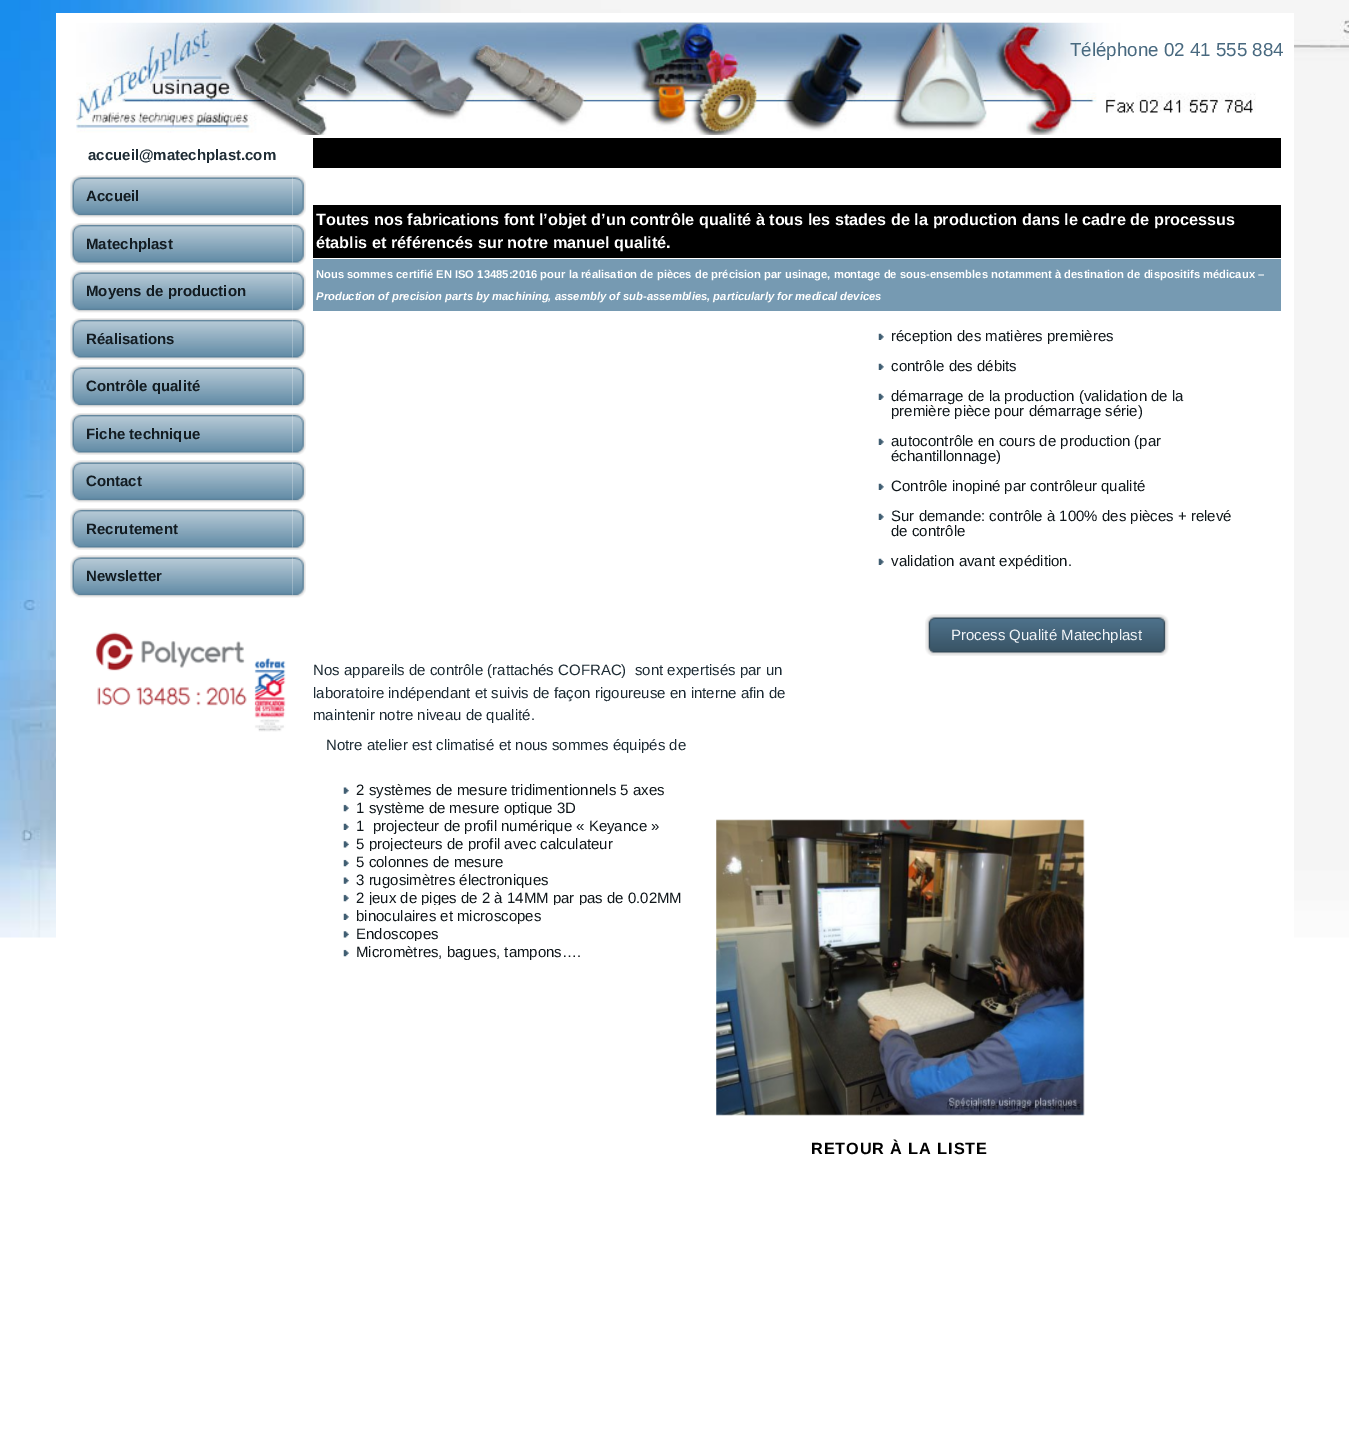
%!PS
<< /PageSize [1349 1451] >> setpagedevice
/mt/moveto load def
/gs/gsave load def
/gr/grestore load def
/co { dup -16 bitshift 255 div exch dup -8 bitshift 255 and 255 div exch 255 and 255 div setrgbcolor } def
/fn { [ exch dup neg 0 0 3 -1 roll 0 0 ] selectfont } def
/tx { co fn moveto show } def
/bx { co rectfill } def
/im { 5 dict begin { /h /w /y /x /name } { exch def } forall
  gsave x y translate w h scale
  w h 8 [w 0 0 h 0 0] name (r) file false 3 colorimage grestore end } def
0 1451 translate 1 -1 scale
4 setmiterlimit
0 0 1349 1451 16#FFFFFF bx
(media/1.raw) 0 0 1349 938 im
56 13 1238 925 16#FFFFFF bx
(media/2.raw) 76 22 967 1 im
(media/3.raw) 76 22 1180 113 im
(media/4.raw) 70 175 223 43 im
(media/5.raw) 292 175 14 43 im
(media/6.raw) 70 223 223 42 im
(media/7.raw) 292 223 14 42 im
(media/4.raw) 70 270 223 43 im
(media/5.raw) 292 270 14 43 im
(media/6.raw) 70 318 223 42 im
(media/7.raw) 292 318 14 42 im
(media/4.raw) 70 365 223 43 im
(media/5.raw) 292 365 14 43 im
(media/6.raw) 70 413 223 42 im
(media/7.raw) 292 413 14 42 im
(media/4.raw) 70 460 223 43 im
(media/5.raw) 292 460 14 43 im
(media/6.raw) 70 508 223 42 im
(media/7.raw) 292 508 14 42 im
(media/8.raw) 70 555 223 43 im
(media/9.raw) 292 555 14 43 im
(media/10.raw) 95 632 191 100 im
313 138 968 30 16#000000 bx
313 205 968 53 16#000000 bx
313 259 968 52 16#769AB2 bx
(media/11.raw) 878 333 6 7 im
(media/11.raw) 878 363 6 7 im
(media/11.raw) 878 393 6 7 im
(media/11.raw) 878 438 6 7 im
(media/11.raw) 878 483 6 7 im
(media/11.raw) 878 513 6 7 im
(media/11.raw) 878 558 6 7 im
(media/12.raw) 925 614 230 42 im
(media/13.raw) 1155 614 14 42 im
(media/14.raw) 343 787 6 7 im
(media/15.raw) 343 804 6 8 im
(media/11.raw) 343 823 6 7 im
(media/16.raw) 343 841 6 7 im
(media/15.raw) 343 859 6 8 im
(media/14.raw) 343 877 6 7 im
(media/15.raw) 343 894 6 8 im
(media/11.raw) 343 913 6 7 im
(media/16.raw) 343 931 6 7 im
(media/15.raw) 343 949 6 8 im
(media/17.raw) 716 819 369 297 im
(Téléphone 02 41 555 884) 1070 56 /LiberationSans-Regular 18.75 16#48697F tx
(accueil@matechplast.com) 88 160 /LiberationSans-Bold 15 16#1D2B34 tx
(Accueil) 86 201 /LiberationSans-Bold 15 16#121B21 tx
(Matechplast) 86 249 /LiberationSans-Bold 15 16#121B21 tx
(Moyens de production) 86 296 /LiberationSans-Bold 15 16#121B21 tx
(Réalisations) 86 344 /LiberationSans-Bold 15 16#121B21 tx
(Contrôle qualité) 86 391 /LiberationSans-Bold 15 16#121B21 tx
(Fiche technique) 86 439 /LiberationSans-Bold 15 16#121B21 tx
(Contact) 86 486 /LiberationSans-Bold 15 16#121B21 tx
(Recrutement) 86 534 /LiberationSans-Bold 15 16#121B21 tx
(Newsletter) 86 581 /LiberationSans-Bold 15 16#121B21 tx
(Toutes nos fabrications font l’objet d’un contrôle qualité à tous les stades de la production dans le cadre de processus) 316 225 /LiberationSans-Bold 16.25 16#FFFFFF tx
(établis et référencés sur notre manuel qualité.) 316 248 /LiberationSans-Bold 16.25 16#FFFFFF tx
(Nous sommes certifié EN ISO 13485:2016 pour la réalisation de pièces de précision par usinage, montage de sous-ensembles notamment à destination de dispositifs médicaux –) 316 278 /LiberationSans-Bold 11.25 16#FFFFFF tx
(Production of precision parts by machining, assembly of sub-assemblies, particularly for medical devices) 316 300 /LiberationSans-BoldItalic 11.25 16#FFFFFF tx
gs
879 329 354 15 rectclip
(réception des matières premières) 891 341 /LiberationSans-Regular 15 16#0F161A tx
gr
(contrôle des débits) 891 371 /LiberationSans-Regular 15 16#0F161A tx
(démarrage de la production \(validation de la) 891 401 /LiberationSans-Regular 15 16#0F161A tx
gs
879 389 354 30 rectclip
(première pièce pour démarrage série\)) 891 416 /LiberationSans-Regular 15 16#0F161A tx
gr
(autocontrôle en cours de production \(par) 891 446 /LiberationSans-Regular 15 16#0F161A tx
gs
879 434 354 30 rectclip
(échantillonnage\)) 891 461 /LiberationSans-Regular 15 16#0F161A tx
gr
gs
879 479 354 15 rectclip
(Contrôle inopiné par contrôleur qualité) 891 491 /LiberationSans-Regular 15 16#0F161A tx
gr
(Sur demande: contrôle à 100% des pièces + relevé) 891 521 /LiberationSans-Regular 15 16#0F161A tx
(de contrôle) 891 536 /LiberationSans-Regular 15 16#0F161A tx
(validation avant expédition.) 891 566 /LiberationSans-Regular 15 16#0F161A tx
(Process Qualité Matechplast) 951 640 /LiberationSans-Regular 15 16#F2F5F8 tx
(Nos appareils de contrôle \(rattachés COFRAC\)  sont expertisés par un) 313 675 /LiberationSans-Regular 15 16#1D2B34 tx
(laboratoire indépendant et suivis de façon rigoureuse en interne afin de) 313 698 /LiberationSans-Regular 15 16#1D2B34 tx
(maintenir notre niveau de qualité.) 313 720 /LiberationSans-Regular 15 16#1D2B34 tx
(Notre atelier est climatisé et nous sommes équipés de) 326 750 /LiberationSans-Regular 15 16#1D2B34 tx
(2 systèmes de mesure tridimentionnels 5 axes) 356 795 /LiberationSans-Regular 15 16#0F161A tx
gs
344 800 354 15 rectclip
(1 système de mesure optique 3D) 356 813 /LiberationSans-Regular 15 16#0F161A tx
gr
gs
344 819 354 15 rectclip
(1  projecteur de profil numérique « Keyance ») 356 831 /LiberationSans-Regular 15 16#0F161A tx
gr
gs
344 836 354 15 rectclip
(5 projecteurs de profil avec calculateur) 356 849 /LiberationSans-Regular 15 16#0F161A tx
gr
(5 colonnes de mesure) 356 867 /LiberationSans-Regular 15 16#0F161A tx
(3 rugosimètres électroniques) 356 885 /LiberationSans-Regular 15 16#0F161A tx
gs
344 890 354 15 rectclip
(2 jeux de piges de 2 à 14MM par pas de 0.02MM) 356 903 /LiberationSans-Regular 15 16#0F161A tx
gr
(binoculaires et microscopes) 356 921 /LiberationSans-Regular 15 16#0F161A tx
gs
344 926 354 15 rectclip
(Endoscopes) 356 939 /LiberationSans-Regular 15 16#0F161A tx
gr
gs
344 945 354 15 rectclip
(Micromètres, bagues, tampons….) 356 957 /LiberationSans-Regular 15 16#0F161A tx
gr
/LiberationSans-Bold 16.25 fn
16#000000 co
811 1154 mt .9 0 (RETOUR À LA LISTE) ashow
showpage
